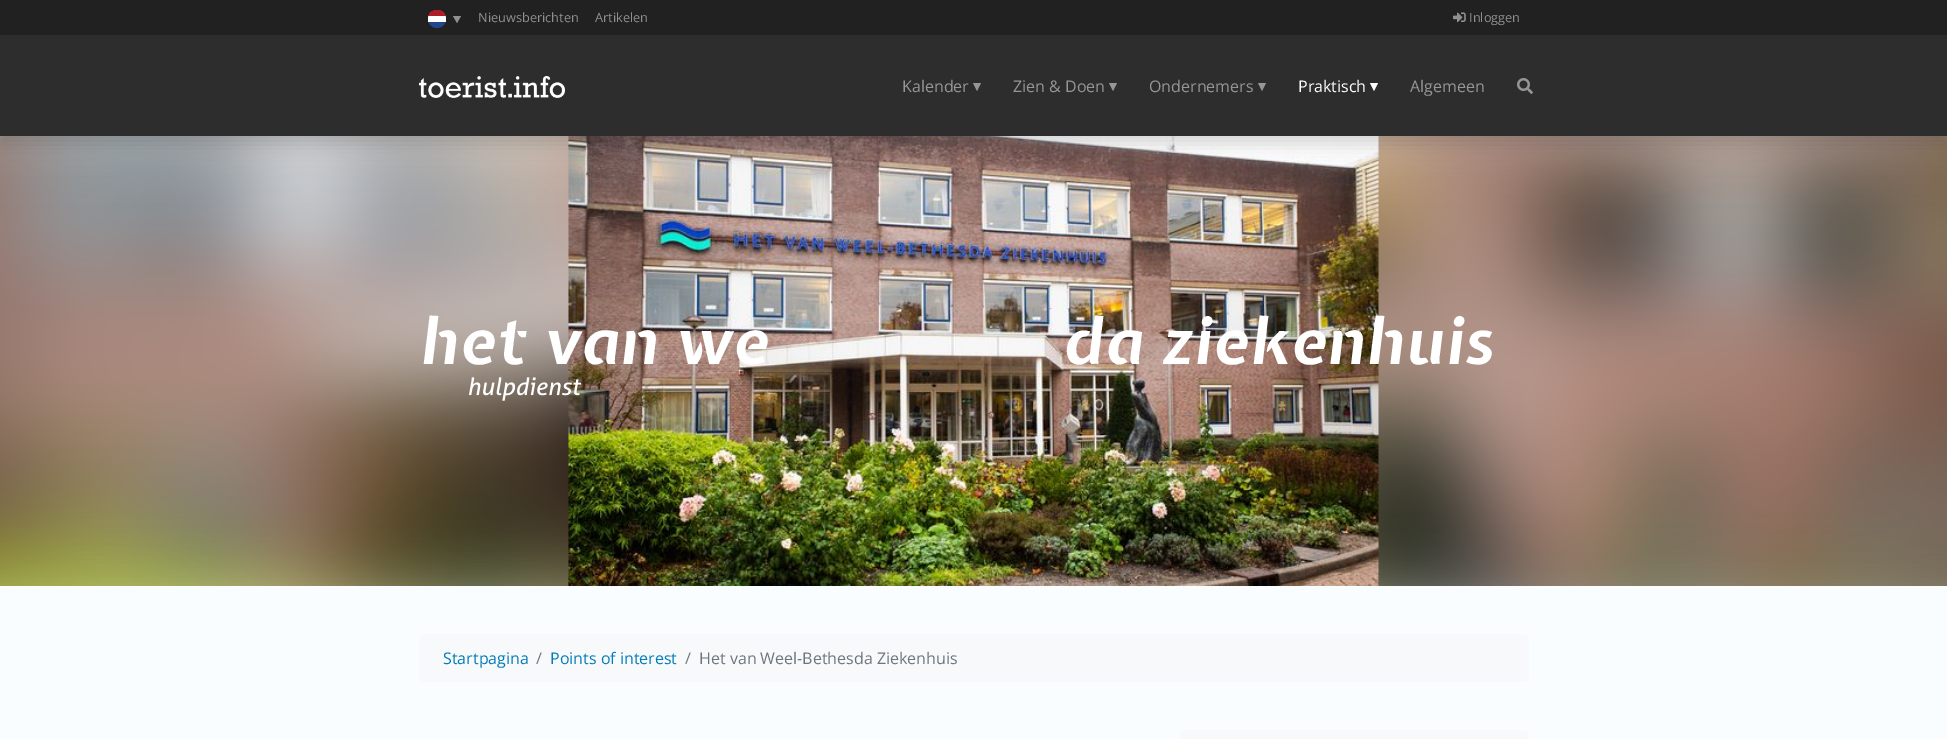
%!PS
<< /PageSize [1947 739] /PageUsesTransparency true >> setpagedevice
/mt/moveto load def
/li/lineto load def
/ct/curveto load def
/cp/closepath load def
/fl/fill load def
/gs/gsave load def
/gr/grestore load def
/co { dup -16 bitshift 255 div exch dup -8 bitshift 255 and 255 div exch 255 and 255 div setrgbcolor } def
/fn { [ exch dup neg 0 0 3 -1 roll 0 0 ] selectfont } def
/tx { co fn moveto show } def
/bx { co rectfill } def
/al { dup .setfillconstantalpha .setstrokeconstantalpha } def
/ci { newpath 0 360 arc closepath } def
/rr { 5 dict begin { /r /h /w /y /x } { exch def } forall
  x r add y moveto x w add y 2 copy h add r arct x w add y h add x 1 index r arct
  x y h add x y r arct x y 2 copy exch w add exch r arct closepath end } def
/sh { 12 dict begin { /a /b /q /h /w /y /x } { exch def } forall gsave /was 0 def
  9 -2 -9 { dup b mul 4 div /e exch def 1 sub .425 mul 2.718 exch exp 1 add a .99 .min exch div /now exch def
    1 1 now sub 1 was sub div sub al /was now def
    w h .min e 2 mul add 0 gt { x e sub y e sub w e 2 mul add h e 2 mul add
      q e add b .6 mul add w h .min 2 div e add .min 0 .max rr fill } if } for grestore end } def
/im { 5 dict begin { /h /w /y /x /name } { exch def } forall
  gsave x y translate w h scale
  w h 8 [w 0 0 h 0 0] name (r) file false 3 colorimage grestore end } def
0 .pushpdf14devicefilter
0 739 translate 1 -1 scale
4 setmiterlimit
0 0 1947 739 16#FFFFFF bx
(media/4.raw) 568 136 811 450 im
(media/5.raw) 0 136 1947 450 im
(media/6.raw) 568 136 811 450 im
16#000000 co
0 43 1947 101 0 8 .15 sh
0 0 1947 35 16#212121 bx
16#21468B co
437 19 9 ci fl
gs
428 10 18 18 9 rr clip newpath
16#FFFFFF co
437 10 mt 442 10 446 14 446 19 ct 446 22 li 428 22 li 428 19 li 428 14 432 10 437 10 ct cp fl
428 10 18 6 16#AE1C28 bx
gr
16#909090 co
453 16 mt 461 16 li 457 23 li cp fl
(media/1.raw) 1453 12 13 11 im
0 35 1947 101 16#2D2D2D bx
(media/2.raw) 419 76 146 22 im
16#969696 co
973 83 mt 981 83 li 977 91 li cp fl
1109 83 mt 1117 83 li 1113 91 li cp fl
1258 83 mt 1266 83 li 1262 91 li cp fl
16#FFFFFF co
1370 83 mt 1378 83 li 1374 91 li cp fl
(media/3.raw) 1517 78 16 16 im
(media/7.raw) 469 377 113 24 im
0 586 1947 153 16#F9FDFF bx
16#F8F9FA co
419 634 1110 48 5 rr fl
1179 730 350 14 5 rr fl
(Nieuwsberichten) 478 22 /OpenSans-Regular 12.75 16#909090 tx
(Artikelen) 595 22 /OpenSans-Regular 12.75 16#909090 tx
(Inloggen) 1469 22 /OpenSans-Regular 12.75 16#909090 tx
(Kalender) 902 92 /OpenSans-Regular 16 16#969696 tx
(Zien & Doen) 1013 92 /OpenSans-Regular 16 16#969696 tx
(Ondernemers) 1149 92 /OpenSans-Regular 16 16#969696 tx
(Praktisch) 1298 92 /OpenSans-Regular 16 16#FFFFFF tx
(Algemeen) 1410 92 /OpenSans-Regular 16 16#969696 tx
/ExpletusSans-BoldItalic 64 fn
16#FFFFFF co
419 364 mt 1 0 (het van we) ashow
1063 364 mt 1 0 (da ziekenhuis) ashow
(Startpagina) 443 664 /OpenSans-Regular 16 16#007CBA tx
(/) 536 664 /OpenSans-Regular 16 16#6C757D tx
(Points of interest) 550 664 /OpenSans-Regular 16 16#007CBA tx
(/) 685 664 /OpenSans-Regular 16 16#6C757D tx
(Het van Weel-Bethesda Ziekenhuis) 699 664 /OpenSans-Regular 16 16#6C757D tx
.poppdf14devicefilter showpage
